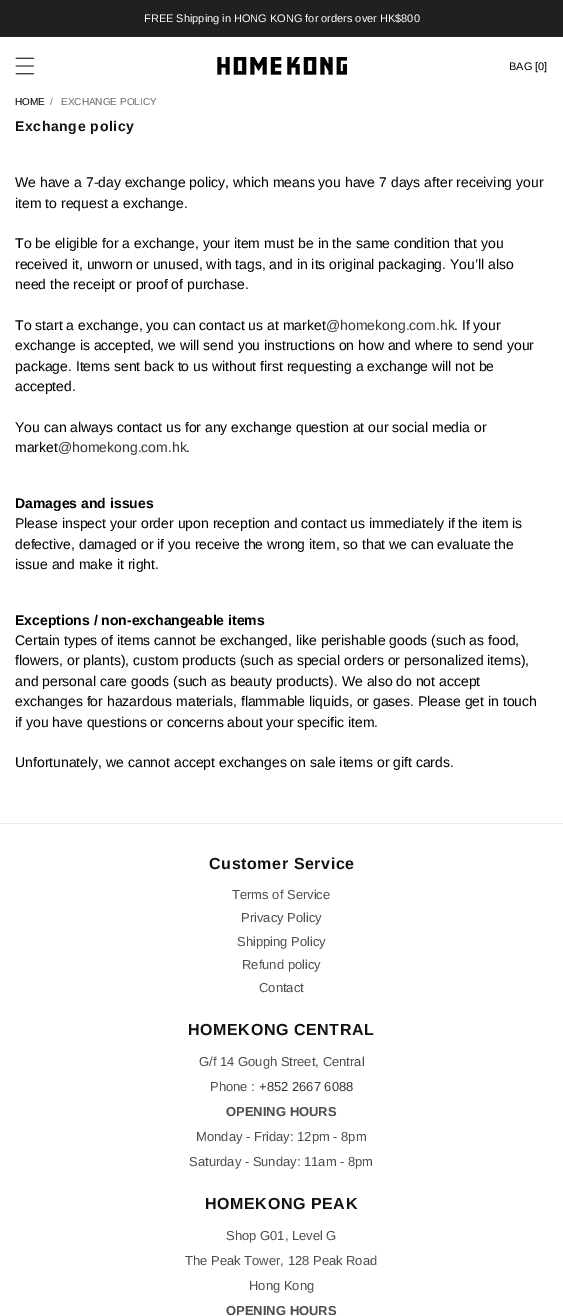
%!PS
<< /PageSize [563 1316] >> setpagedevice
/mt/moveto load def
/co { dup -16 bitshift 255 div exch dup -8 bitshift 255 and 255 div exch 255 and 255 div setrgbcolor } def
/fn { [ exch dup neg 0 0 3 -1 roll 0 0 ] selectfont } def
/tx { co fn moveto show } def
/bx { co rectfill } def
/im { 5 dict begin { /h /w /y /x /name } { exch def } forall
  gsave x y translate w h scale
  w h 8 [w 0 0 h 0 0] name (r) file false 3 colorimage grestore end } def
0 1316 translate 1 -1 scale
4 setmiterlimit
0 0 563 1316 16#FFFFFF bx
0 36 563 1 16#252525 bx
0 0 563 36 16#202020 bx
(media/1.raw) 15 57 20 18 im
(media/2.raw) 217 57 130 18 im
0 823 563 1 16#ECECEC bx
(FREE Shipping in HONG KONG for orders over HK$800) 144 22 /LiberationSans-Regular 11 16#FFFFFF tx
(BAG [0]) 509 70 /LiberationSans-Regular 11 16#000000 tx
(HOME) 15 105 /LiberationSans-Regular 10 16#000000 tx
(/) 50 105 /LiberationSans-Regular 10 16#6C757D tx
(EXCHANGE POLICY) 61 105 /LiberationSans-Regular 10 16#6D6D6D tx
/LiberationSans-Bold 14 fn
16#121212 co
15 131 mt .6 0 (Exchange policy) ashow
(We have a 7-day exchange policy, which means you have 7 days after receiving your) 15 187 /LiberationSans-Regular 14 16#000000 tx
(item to request a exchange.) 15 208 /LiberationSans-Regular 14 16#000000 tx
(To be eligible for a exchange, your item must be in the same condition that you) 15 248 /LiberationSans-Regular 14 16#000000 tx
(received it, unworn or unused, with tags, and in its original packaging. You’ll also) 15 269 /LiberationSans-Regular 14 16#000000 tx
(need the receipt or proof of purchase.) 15 289 /LiberationSans-Regular 14 16#000000 tx
(To start a exchange, you can contact us at market) 15 330 /LiberationSans-Regular 14 16#000000 tx
(@homekong.com.hk) 326 330 /LiberationSans-Regular 14 16#363636 tx
(. If your) 454 330 /LiberationSans-Regular 14 16#000000 tx
(exchange is accepted, we will send you instructions on how and where to send your) 15 350 /LiberationSans-Regular 14 16#000000 tx
(package. Items sent back to us without first requesting a exchange will not be) 15 371 /LiberationSans-Regular 14 16#000000 tx
(accepted.) 15 391 /LiberationSans-Regular 14 16#000000 tx
(You can always contact us for any exchange question at our social media or) 15 432 /LiberationSans-Regular 14 16#000000 tx
(market) 15 452 /LiberationSans-Regular 14 16#000000 tx
(@homekong.com.hk) 58 452 /LiberationSans-Regular 14 16#363636 tx
(.) 186 452 /LiberationSans-Regular 14 16#000000 tx
(Damages and issues) 15 508 /LiberationSans-Bold 14 16#000000 tx
(Please inspect your order upon reception and contact us immediately if the item is) 15 528 /LiberationSans-Regular 14 16#000000 tx
(defective, damaged or if you receive the wrong item, so that we can evaluate the) 15 549 /LiberationSans-Regular 14 16#000000 tx
(issue and make it right.) 15 569 /LiberationSans-Regular 14 16#000000 tx
(Exceptions / non-exchangeable items) 15 625 /LiberationSans-Bold 14 16#000000 tx
(Certain types of items cannot be exchanged, like perishable goods \(such as food,) 15 645 /LiberationSans-Regular 14 16#000000 tx
(flowers, or plants\), custom products \(such as special orders or personalized items\),) 15 665 /LiberationSans-Regular 14 16#000000 tx
(and personal care goods \(such as beauty products\). We also do not accept) 15 686 /LiberationSans-Regular 14 16#000000 tx
(exchanges for hazardous materials, flammable liquids, or gases. Please get in touch) 15 706 /LiberationSans-Regular 14 16#000000 tx
(if you have questions or concerns about your specific item.) 15 727 /LiberationSans-Regular 14 16#000000 tx
(Unfortunately, we cannot accept exchanges on sale items or gift cards.) 15 767 /LiberationSans-Regular 14 16#000000 tx
/LiberationSans-Bold 16 fn
16#121212 co
209 869 mt .6 0 (Customer Service) ashow
(Terms of Service) 232 899 /LiberationSans-Regular 13 16#4D4D4D tx
(Privacy Policy) 241 922 /LiberationSans-Regular 13 16#4D4D4D tx
(Shipping Policy) 237 946 /LiberationSans-Regular 13 16#4D4D4D tx
(Refund policy) 242 969 /LiberationSans-Regular 13 16#4D4D4D tx
(Contact) 259 992 /LiberationSans-Regular 13 16#4D4D4D tx
/LiberationSans-Bold 16 fn
16#121212 co
188 1035 mt .6 0 (HOMEKONG CENTRAL) ashow
(G/f 14 Gough Street, Central) 199 1066 /LiberationSans-Regular 13 16#4D4D4D tx
(Phone :) 210 1091 /LiberationSans-Regular 13 16#4D4D4D tx
(+852 2667 6088) 259 1091 /LiberationSans-Regular 13 16#363636 tx
(OPENING HOURS) 226 1116 /LiberationSans-Bold 13 16#4D4D4D tx
(Monday - Friday: 12pm - 8pm) 196 1141 /LiberationSans-Regular 13 16#4D4D4D tx
(Saturday - Sunday: 11am - 8pm) 189 1166 /LiberationSans-Regular 13 16#4D4D4D tx
/LiberationSans-Bold 16 fn
16#121212 co
205 1209 mt .6 0 (HOMEKONG PEAK) ashow
(Shop G01, Level G) 226 1240 /LiberationSans-Regular 13 16#4D4D4D tx
(The Peak Tower, 128 Peak Road) 185 1265 /LiberationSans-Regular 13 16#4D4D4D tx
(Hong Kong) 249 1290 /LiberationSans-Regular 13 16#4D4D4D tx
(OPENING HOURS) 226 1315 /LiberationSans-Bold 13 16#4D4D4D tx
showpage
